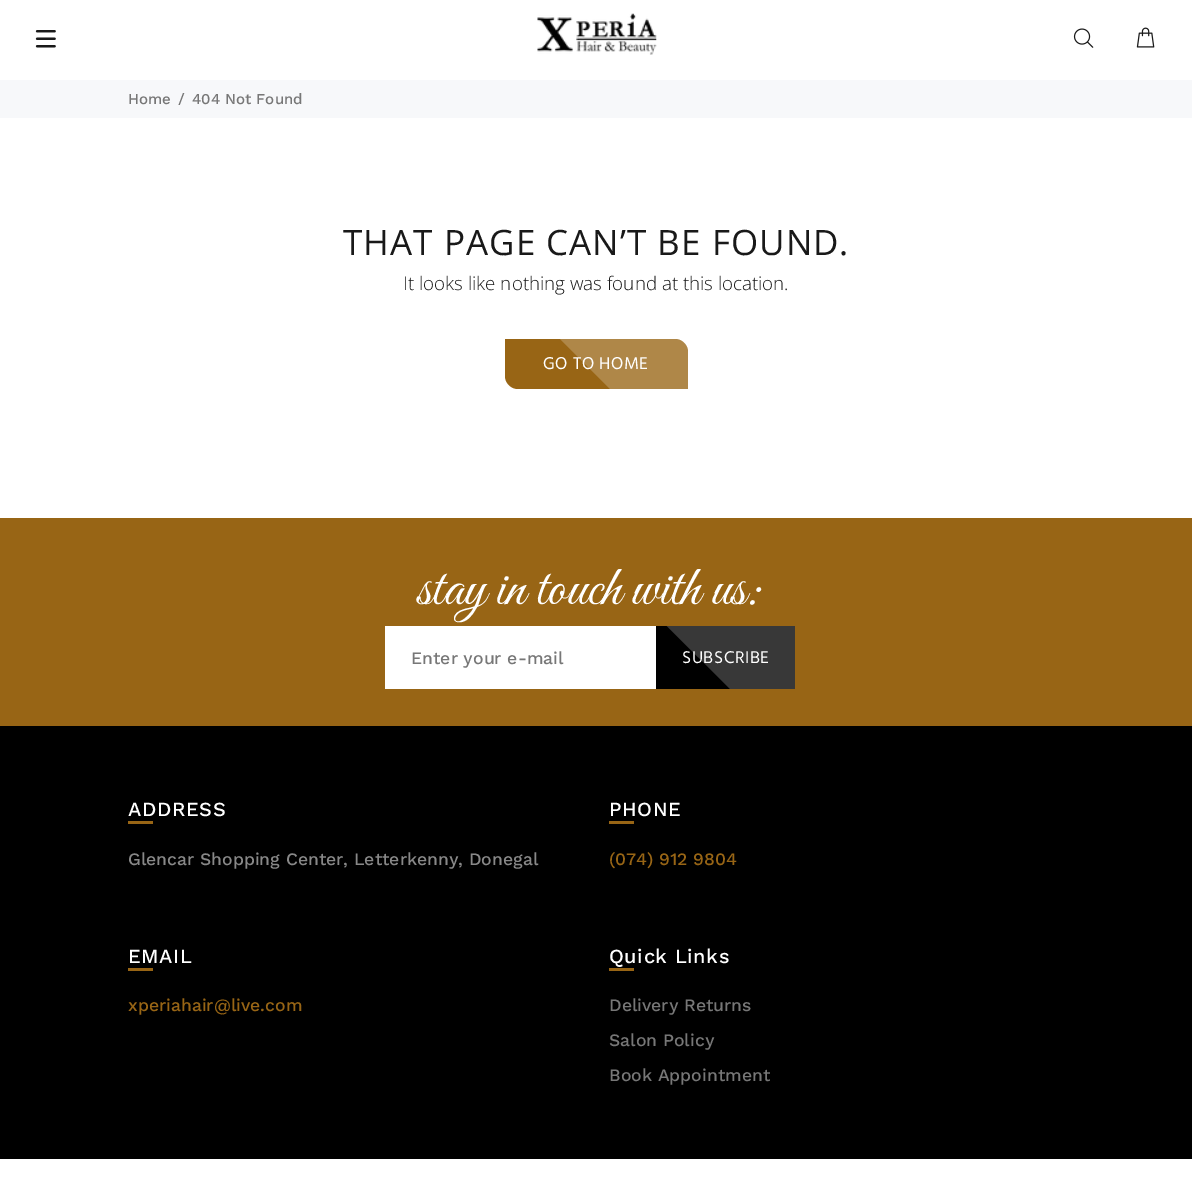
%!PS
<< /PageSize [1192 1188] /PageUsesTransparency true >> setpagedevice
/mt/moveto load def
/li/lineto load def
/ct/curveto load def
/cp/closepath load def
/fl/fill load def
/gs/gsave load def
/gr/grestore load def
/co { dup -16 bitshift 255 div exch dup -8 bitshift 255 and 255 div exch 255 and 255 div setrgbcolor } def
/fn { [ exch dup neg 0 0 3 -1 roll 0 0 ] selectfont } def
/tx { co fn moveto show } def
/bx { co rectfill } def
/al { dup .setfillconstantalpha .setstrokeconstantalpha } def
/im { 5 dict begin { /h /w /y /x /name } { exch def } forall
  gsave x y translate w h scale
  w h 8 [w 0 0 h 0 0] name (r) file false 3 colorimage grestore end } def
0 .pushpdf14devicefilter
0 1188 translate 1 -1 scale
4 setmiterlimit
0 0 1192 1188 16#FFFFFF bx
(media/1.raw) 35 30 21 18 im
(media/2.raw) 537 13 120 42 im
(media/3.raw) 1073 28 21 20 im
(media/4.raw) 1136 27 19 21 im
0 80 1192 38 16#F7F8FA bx
16#986515 co
505 339 mt 675 339 li 682 339 688 345 688 352 ct 688 389 li 518 389 li 511 389 505 383 505 376 ct cp fl
0 518 1192 208 16#986515 bx
385 626 271 63 16#FFFFFF bx
656 626 139 63 16#000000 bx
0 726 1192 433 16#000000 bx
128 821 25 3 16#986515 bx
609 821 25 3 16#986515 bx
128 968 25 3 16#986515 bx
609 968 25 3 16#986515 bx
(Home) 128 104 /WorkSans-Medium 15 16#777777 tx
(/) 178 104 /WorkSans-Medium 15 16#777777 tx
(404 Not Found) 192 104 /WorkSans-Medium 15 16#777777 tx
/OpenSans-Regular 35 fn
16#191919 co
343 255 mt 1.05 0 (THAT PAGE CAN’T BE FOUND.) ashow
(It looks like nothing was found at this location.) 403 290 /OpenSans-Light 18.75 16#191919 tx
/Hind-Regular 17.5 fn
16#FFFFFF co
543 369 mt .5 0 (GO TO HOME) ashow
0.22 al
610 389 mt 560 339 li 675 339 li 682 339 688 345 688 352 ct 688 389 li cp fl
1 al
(stay in touch with us:) 417 604 /GreatVibes-Regular 57.5 16#FFFFFF tx
(Enter your e-mail) 411 664 /WorkSans-Medium 17.5 16#777777 tx
/Hind-Regular 17.5 fn
16#FFFFFF co
682 663 mt .5 0 (SUBSCRIBE) ashow
gs
656 626 139 63 rectclip
0.22 al
882 311 mt 1147 576 li 882 841 li 617 576 li cp fl
gr
/WorkSans-Medium 20 fn
128 816 mt .6 0 (ADDRESS) ashow
(Glencar Shopping Center, Letterkenny, Donegal) 128 865 /WorkSans-Medium 17.5 16#888888 tx
/WorkSans-Medium 20 fn
16#FFFFFF co
609 816 mt .6 0 (PHONE) ashow
(\(074\) 912 9804) 609 865 /WorkSans-Medium 17.5 16#986515 tx
/WorkSans-Medium 20 fn
16#FFFFFF co
128 963 mt .6 0 (EMAIL) ashow
(xperiahair@live.com) 128 1011 /WorkSans-Medium 17.5 16#986515 tx
/WorkSans-Medium 20 fn
16#FFFFFF co
609 963 mt .6 0 (Quick Links) ashow
(Delivery Returns) 609 1011 /WorkSans-Medium 17.5 16#777777 tx
(Salon Policy) 609 1046 /WorkSans-Medium 17.5 16#777777 tx
(Book Appointment) 609 1081 /WorkSans-Medium 17.5 16#777777 tx
.poppdf14devicefilter showpage
